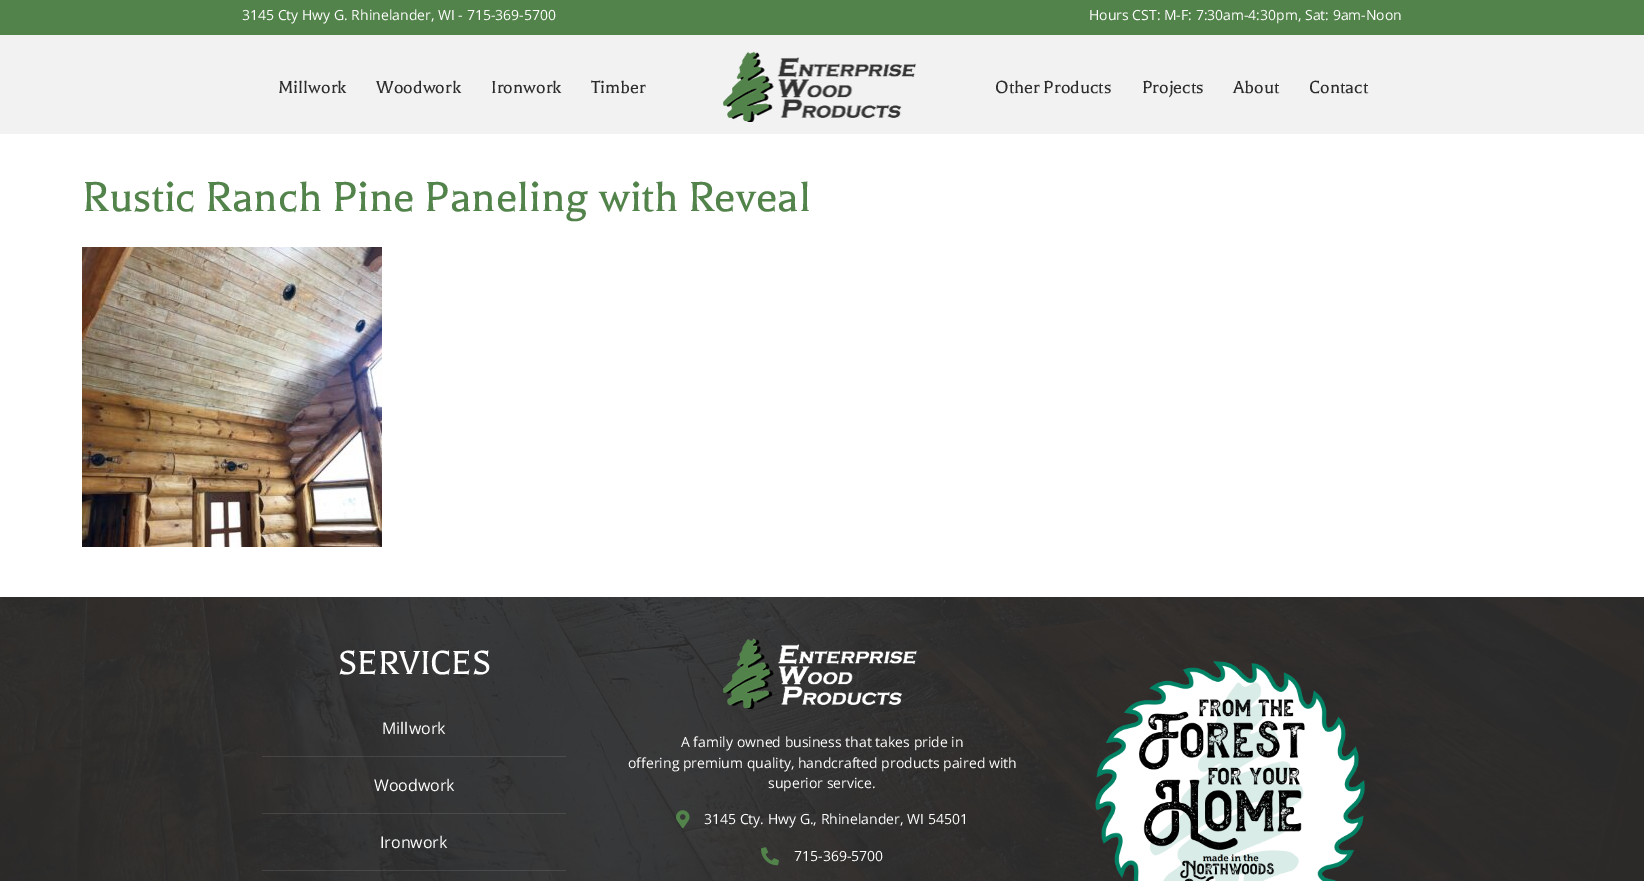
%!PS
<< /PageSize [1644 881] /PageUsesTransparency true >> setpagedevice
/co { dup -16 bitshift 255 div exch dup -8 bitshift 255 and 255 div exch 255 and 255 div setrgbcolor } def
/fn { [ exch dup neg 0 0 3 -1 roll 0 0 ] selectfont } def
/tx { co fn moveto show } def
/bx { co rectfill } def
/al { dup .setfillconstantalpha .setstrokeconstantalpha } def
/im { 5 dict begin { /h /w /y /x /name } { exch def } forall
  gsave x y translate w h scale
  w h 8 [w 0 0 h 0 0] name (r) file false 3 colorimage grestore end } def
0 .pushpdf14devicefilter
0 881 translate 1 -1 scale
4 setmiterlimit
0 0 1644 881 16#FFFFFF bx
0 0 1644 35 16#52834A bx
0 35 1644 99 16#F2F2F2 bx
(media/1.raw) 723 51 194 71 im
(media/2.raw) 82 247 300 300 im
(media/3.raw) 0 597 1644 284 im
0.1 al
262 756 304 1 16#FFFFFF bx
262 813 304 1 16#FFFFFF bx
262 870 304 1 16#FFFFFF bx
1 al
(media/4.raw) 723 638 194 71 im
(media/5.raw) 676 810 14 19 im
(media/6.raw) 761 847 18 19 im
(media/7.raw) 1095 661 270 220 im
(3145 Cty Hwy G. Rhinelander, WI - 715-369-5700) 242 20 /OpenSans-Regular 14 16#FFFFFF tx
(Hours CST: M-F: 7:30am-4:30pm, Sat: 9am-Noon) 1089 20 /OpenSans-Regular 14 16#FFFFFF tx
(Millwork) 278 93 /Balthazar-Regular 20 16#2D2D2D tx
(Woodwork) 376 93 /Balthazar-Regular 20 16#2D2D2D tx
(Ironwork) 491 93 /Balthazar-Regular 20 16#2D2D2D tx
(Timber) 591 93 /Balthazar-Regular 20 16#2D2D2D tx
(Other Products) 995 93 /Balthazar-Regular 20 16#2D2D2D tx
(Projects) 1142 93 /Balthazar-Regular 20 16#2D2D2D tx
(About) 1233 93 /Balthazar-Regular 20 16#2D2D2D tx
(Contact) 1309 93 /Balthazar-Regular 20 16#2D2D2D tx
(Rustic Ranch Pine Paneling with Reveal) 82 211 /Balthazar-Regular 48 16#52834A tx
(SERVICES) 338 674 /Balthazar-Regular 38 16#FFFFFF tx
(Millwork) 382 734 /OpenSans-Regular 16 16#FFFFFF tx
(Woodwork) 374 791 /OpenSans-Regular 16 16#FFFFFF tx
(Ironwork) 380 848 /OpenSans-Regular 16 16#FFFFFF tx
(A family owned business that takes pride in) 681 747 /OpenSans-Regular 14 16#FFFFFF tx
(offering premium quality, handcrafted products paired with) 628 768 /OpenSans-Regular 14 16#FFFFFF tx
(superior service.) 768 788 /OpenSans-Regular 14 16#FFFFFF tx
(3145 Cty. Hwy G., Rhinelander, WI 54501) 704 824 /OpenSans-Regular 14 16#FFFFFF tx
(715-369-5700) 794 861 /OpenSans-Regular 14 16#FFFFFF tx
.poppdf14devicefilter showpage
